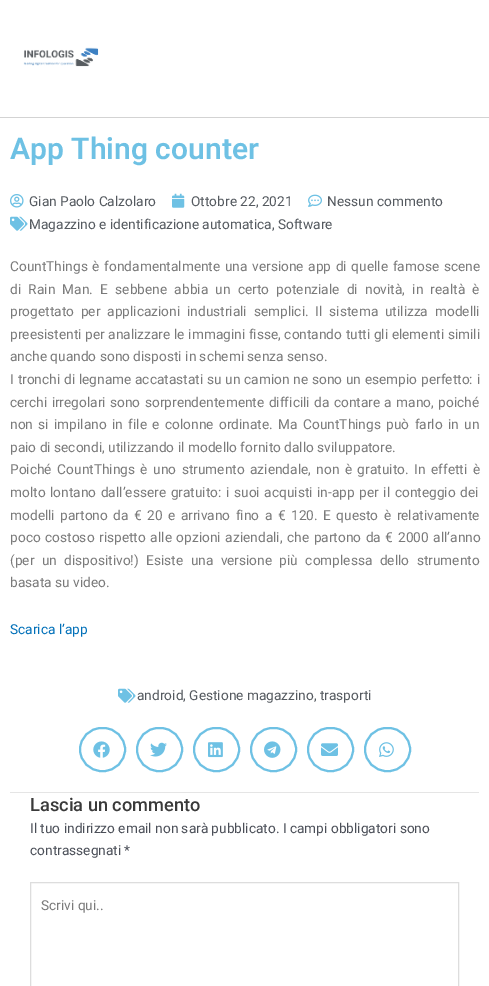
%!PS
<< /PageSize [489 986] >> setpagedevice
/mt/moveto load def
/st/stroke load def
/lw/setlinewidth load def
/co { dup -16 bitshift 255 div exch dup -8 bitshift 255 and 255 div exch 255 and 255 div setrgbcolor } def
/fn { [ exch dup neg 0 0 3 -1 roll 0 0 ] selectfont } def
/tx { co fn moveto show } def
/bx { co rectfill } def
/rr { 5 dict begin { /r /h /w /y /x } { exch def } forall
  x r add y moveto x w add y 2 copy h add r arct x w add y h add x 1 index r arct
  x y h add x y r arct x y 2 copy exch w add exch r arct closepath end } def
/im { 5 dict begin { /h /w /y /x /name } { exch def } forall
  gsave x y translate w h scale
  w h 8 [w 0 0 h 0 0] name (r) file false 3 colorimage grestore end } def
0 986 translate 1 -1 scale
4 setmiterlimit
0 0 489 986 16#FFFFFF bx
0 117 489 1 16#D3D3D3 bx
(media/1.raw) 23 47 76 20 im
(media/2.raw) 10 194 14 14 im
(media/3.raw) 172 193 13 15 im
(media/4.raw) 308 194 14 13 im
(media/5.raw) 10 216 18 15 im
(media/5.raw) 118 688 18 15 im
16#6EC1E4 co
2 lw
80 728 45 43 21.5 rr st
(media/6.raw) 93 741 17 17 im
137 728 45 43 21.5 rr st
(media/7.raw) 150 742 17 15 im
194 728 45 43 21.5 rr st
(media/8.raw) 208 742 15 16 im
251 728 45 43 21.5 rr st
(media/9.raw) 264 741 17 17 im
308 728 45 43 21.5 rr st
(media/10.raw) 321 743 17 13 im
365 728 45 43 21.5 rr st
(media/11.raw) 379 742 15 15 im
10 792 469 1 16#E5E5E5 bx
16#DDDDDD co
1 lw
30.5 882.5 428 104 rectstroke
(App Thing counter) 10 159 /Roboto-SemiBold 30 16#6EC1E4 tx
(Gian Paolo Calzolaro) 29 206 /Roboto-Regular 13.7 16#54595F tx
(Ottobre 22, 2021) 191 206 /Roboto-Regular 13.7 16#54595F tx
(Nessun commento) 327 206 /Roboto-Regular 13.7 16#54595F tx
(Magazzino e identificazione automatica, Software) 29 229 /Roboto-Regular 13.7 16#54595F tx
16#7A7A7A co
10 271 mt 1.25 0 32 (CountThings è fondamentalmente una versione app di quelle famose scene) widthshow
10 294 mt 3.9 0 32 (di Rain Man. E sebbene abbia un certo potenziale di novità, in realtà è) widthshow
10 316 mt 3.5 0 32 (progettato per applicazioni industriali semplici. Il sistema utilizza modelli) widthshow
10 339 mt .25 0 32 (preesistenti per analizzare le immagini fisse, contando tutti gli elementi simili) widthshow
(anche quando sono disposti in schemi senza senso.) 10 361 /Roboto-Regular 13.7 16#7A7A7A tx
10 384 mt .4 0 32 (I tronchi di legname accatastati su un camion ne sono un esempio perfetto: i) widthshow
10 407 mt 1 0 32 (cerchi irregolari sono sorprendentemente difficili da contare a mano, poiché) widthshow
10 429 mt 2 0 32 (non si impilano in file e colonne ordinate. Ma CountThings può farlo in un) widthshow
(paio di secondi, utilizzando il modello fornito dallo sviluppatore.) 10 452 /Roboto-Regular 13.7 16#7A7A7A tx
10 474 mt 2.1 0 32 (Poiché CountThings è uno strumento aziendale, non è gratuito. In effetti è) widthshow
10 497 mt 1.25 0 32 (molto lontano dall’essere gratuito: i suoi acquisti in-app per il conteggio dei) widthshow
10 520 mt 2.1 0 32 (modelli partono da € 20 e arrivano fino a € 120. E questo è relativamente) widthshow
10 542 mt 1.25 0 32 (poco costoso rispetto alle opzioni aziendali, che partono da € 2000 all’anno) widthshow
10 565 mt 4 0 32 (\(per un dispositivo!\) Esiste una versione più complessa dello strumento) widthshow
(basata su video.) 10 587 /Roboto-Regular 13.7 16#7A7A7A tx
(Scarica l’app) 10 634 /Roboto-Regular 13.7 16#0170B9 tx
(android, Gestione magazzino, trasporti) 137 700 /Roboto-Regular 13.7 16#54595F tx
(Lascia un commento) 30 811 /Roboto-Medium 18.25 16#3A3A3A tx
(Il tuo indirizzo email non sarà pubblicato. I campi obbligatori sono) 30 833 /Roboto-Regular 13.7 16#4B4F58 tx
(contrassegnati *) 30 855 /Roboto-Regular 13.7 16#4B4F58 tx
(Scrivi qui..) 41 910 /Roboto-Regular 13.7 16#7A7A7A tx
showpage
